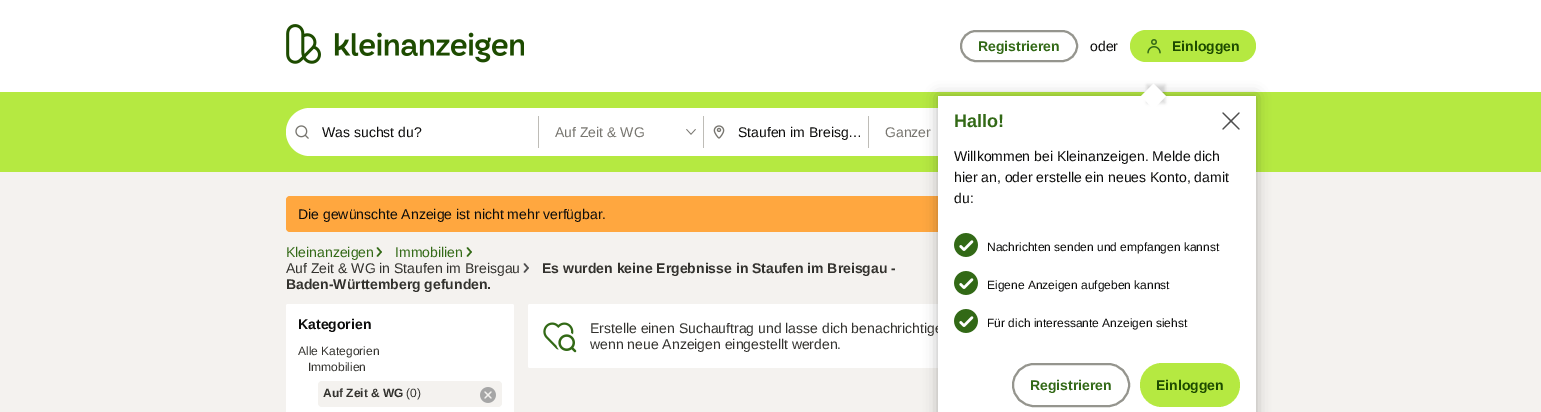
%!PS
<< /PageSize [1541 412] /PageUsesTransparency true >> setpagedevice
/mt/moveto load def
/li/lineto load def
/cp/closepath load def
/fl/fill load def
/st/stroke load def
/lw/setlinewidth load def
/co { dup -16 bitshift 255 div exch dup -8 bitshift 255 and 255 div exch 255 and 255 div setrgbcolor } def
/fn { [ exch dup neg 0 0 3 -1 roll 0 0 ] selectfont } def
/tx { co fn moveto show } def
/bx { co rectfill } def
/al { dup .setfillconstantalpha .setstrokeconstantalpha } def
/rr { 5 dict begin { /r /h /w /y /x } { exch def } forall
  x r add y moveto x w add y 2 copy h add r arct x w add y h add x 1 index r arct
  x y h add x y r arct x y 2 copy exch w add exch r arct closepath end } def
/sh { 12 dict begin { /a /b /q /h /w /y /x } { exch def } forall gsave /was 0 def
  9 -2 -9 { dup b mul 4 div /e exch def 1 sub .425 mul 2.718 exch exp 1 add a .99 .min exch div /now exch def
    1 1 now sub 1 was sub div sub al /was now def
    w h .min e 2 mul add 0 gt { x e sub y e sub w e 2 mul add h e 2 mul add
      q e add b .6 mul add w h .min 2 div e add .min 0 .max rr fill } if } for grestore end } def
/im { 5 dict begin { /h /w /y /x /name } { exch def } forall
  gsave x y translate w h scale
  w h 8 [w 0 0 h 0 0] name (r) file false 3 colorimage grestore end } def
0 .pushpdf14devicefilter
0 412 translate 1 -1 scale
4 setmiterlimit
0 0 1541 412 16#FFFFFF bx
0 92 1541 80 16#B5E941 bx
16#FFFFFF co
286 108 803 48 24 rr fl
(media/1.raw) 295 125 14 14 im
538 116 1 32 16#BEBCB7 bx
(media/2.raw) 686 129 10 6 im
703 116 1 32 16#BEBCB7 bx
(media/3.raw) 713 125 12 14 im
868 116 1 32 16#BEBCB7 bx
(media/4.raw) 286 24 238 40 im
16#95958E co
2 lw
961 31 116 30 15 rr st
16#B5E941 co
1130 30 126 32 16 rr fl
(media/5.raw) 1147 39 14 15 im
0 172 1541 240 16#F4F2EF bx
16#FFA73F co
286 196 970 36 4 rr fl
16#FFFFFF co
528 304 728 64 2 rr fl
16#0C0C0B co
938 96 318 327 0 7 .3 sh
16#326916 co
1.5 lw
1 setlinecap
377.5 248 mt 381 252 li 377.5 256 li st
467.5 248 mt 471 252 li 467.5 256 li st
16#4D4D4D co
524.5 264 mt 528 268 li 524.5 272 li st
16#FFFFFF co
286 304 228 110 2 rr fl
16#F4F2EF co
318 381 184 26 4 rr fl
(media/8.raw) 480 387 16 16 im
(media/9.raw) 543 322 34 31 im
(Was suchst du?) 322 137 /LiberationSans-Regular 14 16#0C0C0B tx
(Auf Zeit & WG) 555 137 /LiberationSans-Regular 14 16#77756F tx
(Staufen im Breisg…) 738 137 /LiberationSans-Regular 14 16#0C0C0B tx
(Ganzer) 885 137 /LiberationSans-Regular 14 16#77756F tx
(Registrieren) 978 51 /LiberationSans-Bold 14 16#326916 tx
(oder) 1090 51 /LiberationSans-Regular 14 16#0C0C0B tx
(Einloggen) 1172 51 /LiberationSans-Bold 14 16#1D4B00 tx
(Die gewünschte Anzeige ist nicht mehr verfügbar.) 298 219 /LiberationSans-Regular 14 16#0C0C0B tx
(Kleinanzeigen) 286 257 /LiberationSans-Regular 14 16#326916 tx
(Immobilien) 395 257 /LiberationSans-Regular 14 16#326916 tx
(Auf Zeit & WG in Staufen im Breisgau) 286 273 /LiberationSans-Regular 14 16#33322E tx
(Es wurden keine Ergebnisse in Staufen im Breisgau -) 542 273 /LiberationSans-Bold 14 16#33322E tx
(Baden-Württemberg gefunden.) 286 289 /LiberationSans-Bold 14 16#33322E tx
(Kategorien) 298 329 /LiberationSans-Bold 14 16#0C0C0B tx
(Alle Kategorien) 298 355 /LiberationSans-Regular 12 16#33322E tx
(Immobilien) 308 371 /LiberationSans-Regular 12 16#33322E tx
(Auf Zeit & WG) 323 397 /LiberationSans-Bold 12 16#33322E tx
(\(0\)) 406 397 /LiberationSans-Regular 12 16#33322E tx
(Erstelle einen Suchauftrag und lasse dich benachrichtige) 590 333 /LiberationSans-Regular 14 16#33322E tx
938 96 318 316 16#FFFFFF bx
(media/6.raw) 1222 112 18 18 im
16#0C0C0B co
1147 85 18 18 0 1.5 .15 sh
16#FFFFFF co
1141 96 mt 1153.5 83.5 li 1166 96 li 1153.5 109 li cp fl
16#B5E941 co
1140 363 100 44 22 rr fl
(Einloggen) 1156 390 /LiberationSans-Bold 14 16#1D4B00 tx
16#95958E co
2 lw
0 setlinecap
1013 364 116 42 21 rr st
(Registrieren) 1030 390 /LiberationSans-Bold 14 16#326916 tx
(Für dich interessante Anzeigen siehst) 987 327 /LiberationSans-Regular 12 16#0C0C0B tx
(media/7.raw) 954 309 24 24 im
(Eigene Anzeigen aufgeben kannst) 987 289 /LiberationSans-Regular 12 16#0C0C0B tx
(media/7.raw) 954 271 24 24 im
(Nachrichten senden und empfangen kannst) 987 251 /LiberationSans-Regular 12 16#0C0C0B tx
(media/7.raw) 954 233 24 24 im
(du:) 954 203 /LiberationSans-Regular 14 16#0C0C0B tx
(hier an, oder erstelle ein neues Konto, damit) 954 182 /LiberationSans-Regular 14 16#0C0C0B tx
(Willkommen bei Kleinanzeigen. Melde dich) 954 161 /LiberationSans-Regular 14 16#0C0C0B tx
(Hallo!) 954 127 /LiberationSans-Bold 18 16#326916 tx
(wenn neue Anzeigen eingestellt werden.) 590 349 /LiberationSans-Regular 14 16#33322E tx
.poppdf14devicefilter showpage
